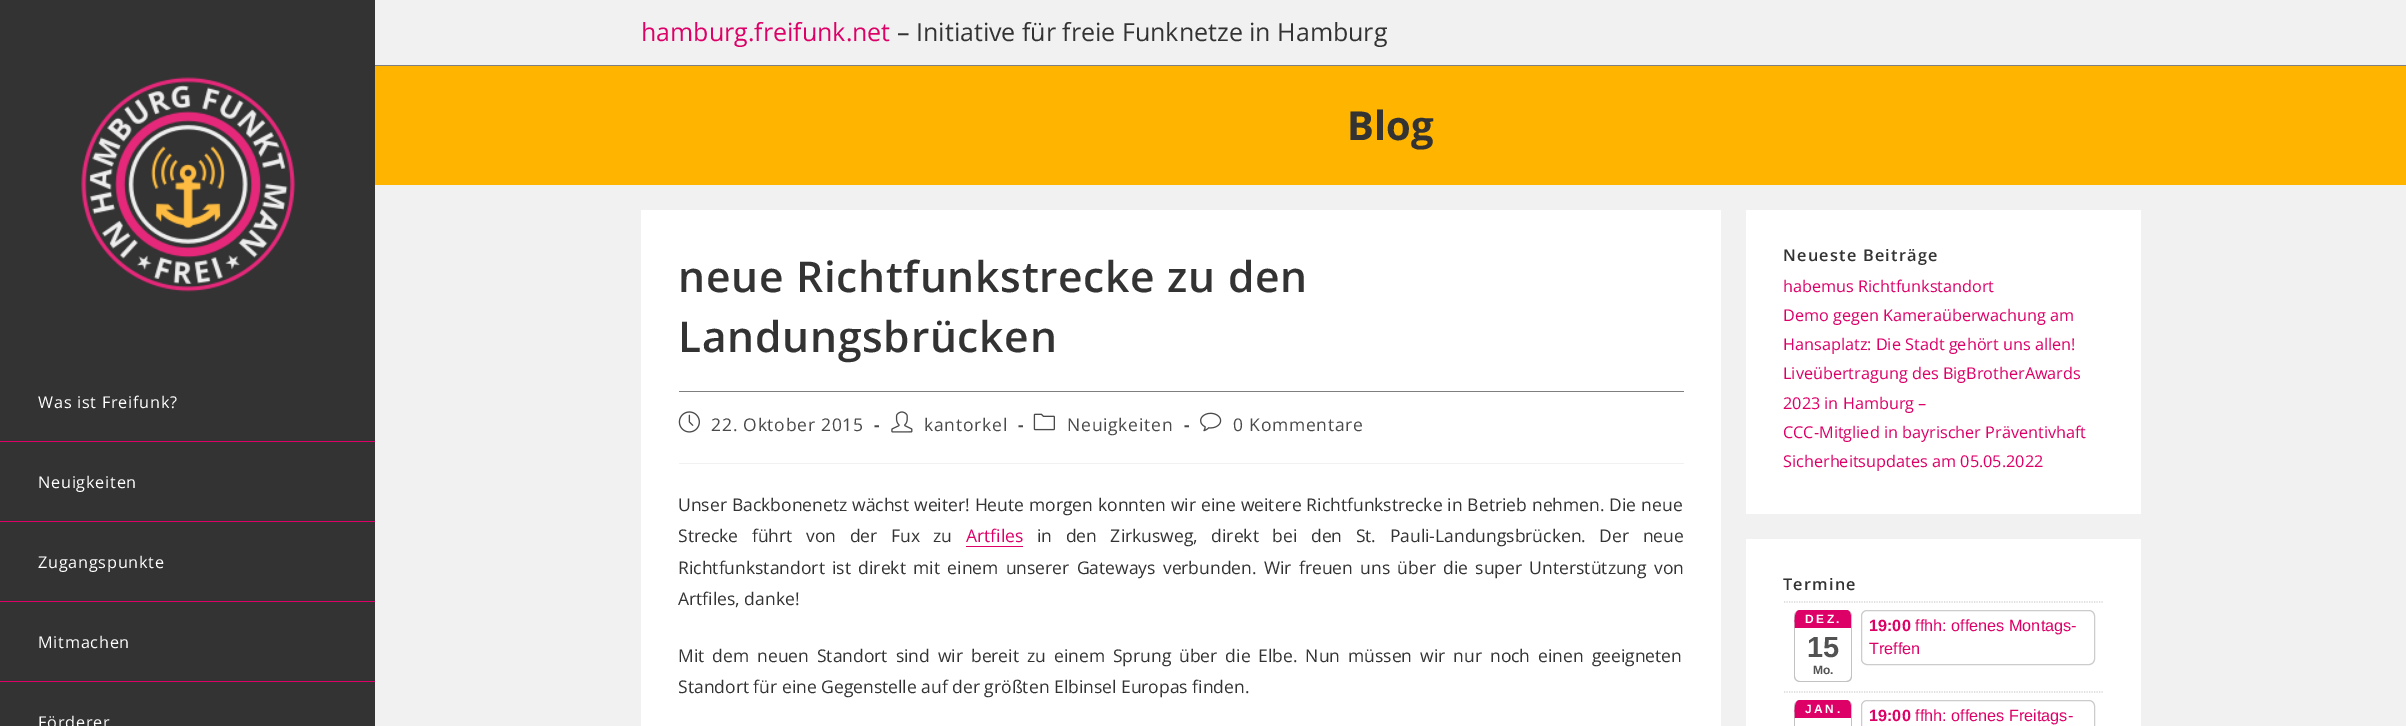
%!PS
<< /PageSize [2406 726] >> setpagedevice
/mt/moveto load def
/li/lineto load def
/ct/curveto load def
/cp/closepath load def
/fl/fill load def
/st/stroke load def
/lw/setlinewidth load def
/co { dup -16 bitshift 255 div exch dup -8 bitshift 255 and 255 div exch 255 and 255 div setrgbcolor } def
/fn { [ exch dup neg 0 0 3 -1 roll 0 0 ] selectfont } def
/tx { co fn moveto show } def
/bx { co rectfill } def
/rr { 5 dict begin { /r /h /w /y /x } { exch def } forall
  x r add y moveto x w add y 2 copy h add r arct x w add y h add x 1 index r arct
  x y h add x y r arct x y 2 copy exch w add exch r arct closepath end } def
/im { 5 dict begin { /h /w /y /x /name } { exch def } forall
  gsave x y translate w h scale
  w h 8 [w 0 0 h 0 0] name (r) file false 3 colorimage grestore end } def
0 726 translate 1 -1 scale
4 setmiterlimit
0 0 2406 726 16#F1F1F1 bx
375 65 2031 1 16#7F7F7F bx
0 0 375 726 16#333333 bx
(media/1.raw) 81 77 215 215 im
0 441 375 1 16#DC0067 bx
0 521 375 1 16#DC0067 bx
0 601 375 1 16#DC0067 bx
0 681 375 1 16#DC0067 bx
375 66 2031 119 16#FFB400 bx
641 210 1080 516 16#FFFFFF bx
679 391 1005 1 16#7F7F7F bx
679 463 1005 1 16#F1F1F1 bx
(media/2.raw) 678 411 22 22 im
(media/3.raw) 891 411 22 22 im
(media/4.raw) 1033 413 22 18 im
(media/5.raw) 1200 412 22 20 im
966 546 57 1 16#DC0067 bx
1746 210 395 304 16#FFFFFF bx
1746 539 395 187 16#FFFFFF bx
16#D6D6D6 co
1.2 lw
[1.25 1.25] 0 setdash
1784 602 mt 2104 602 li st
16#C2C2C2 co
1800 610 mt 1846 610 li 1850 610 1852 613 1852 616 ct 1852 676 li 1852 680 1850 682 1846 682 ct 1800 682 li 1797 682 1794 680 1794 676 ct 1794 616 li 1794 613 1797 610 1800 610 ct cp 1800 610 mt 1846 610 li 1849 610 1851 613 1851 616 ct 1851 676 li 1851 679 1849 681 1846 681 ct 1800 681 li 1797 681 1795 679 1795 676 ct 1795 616 li 1795 613 1797 610 1800 610 ct cp eofill
16#DC0067 co
1800 610 mt 1793 610 1795 624 1795 628 ct 1851 628 li 1851 619 li 1851 616 1851 610 1846 610 ct cp fl
16#CCCCCC co
1 lw
[] 0 setdash
1861.5 610.5 233 54 5.5 rr st
16#D6D6D6 co
1.2 lw
[1.25 1.25] 0 setdash
1784 692 mt 2104 692 li st
16#C2C2C2 co
1800 700 mt 1846 700 li 1850 700 1852 703 1852 706 ct 1852 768 li 1852 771 1850 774 1846 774 ct 1800 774 li 1797 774 1794 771 1794 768 ct 1794 706 li 1794 703 1797 700 1800 700 ct cp 1800 700 mt 1846 700 li 1849 700 1851 703 1851 706 ct 1851 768 li 1851 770 1849 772 1846 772 ct 1800 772 li 1797 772 1795 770 1795 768 ct 1795 706 li 1795 703 1797 700 1800 700 ct cp eofill
16#DC0067 co
1800 700 mt 1793 700 1795 714 1795 718 ct 1851 718 li 1851 709 li 1851 706 1851 700 1846 700 ct cp fl
16#CCCCCC co
1 lw
[] 0 setdash
1861.5 700.5 233 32 5.5 rr st
(hamburg.freifunk.net) 641 41 /OpenSans-Regular 25 16#DC0067 tx
(– Initiative für freie Funknetze in Hamburg) 897 41 /OpenSans-Regular 25 16#333333 tx
/OpenSans-Regular 16.25 fn
16#FFFFFF co
38 408 mt .75 0 (Was ist Freifunk?) ashow
38 488 mt .75 0 (Neuigkeiten) ashow
38 568 mt .75 0 (Zugangspunkte) ashow
38 648 mt .75 0 (Mitmachen) ashow
38 728 mt .75 0 (Förderer) ashow
(Blog) 1347 140 /OpenSans-Bold 40 16#333333 tx
/OpenSans-SemiBold 42.5 fn
678 292 mt .75 0 (neue Richtfunkstrecke zu den) ashow
678 352 mt .75 0 (Landungsbrücken) ashow
/OpenSans-Regular 17.5 fn
16#4A4A4A co
711 431 mt .75 0 (22. Oktober 2015) ashow
/OpenSans-Bold 17.5 fn
874 431 mt .75 0 (-) ashow
/OpenSans-Regular 17.5 fn
924 431 mt .75 0 (kantorkel) ashow
/OpenSans-Bold 17.5 fn
1018 431 mt .75 0 (-) ashow
/OpenSans-Regular 17.5 fn
1067 431 mt .75 0 (Neuigkeiten) ashow
/OpenSans-Bold 17.5 fn
1184 431 mt .75 0 (-) ashow
/OpenSans-Regular 17.5 fn
1233 431 mt .75 0 (0 Kommentare) ashow
16#333333 co
678 511 mt .4 0 32 (Unser Backbonenetz wächst weiter! Heute morgen konnten wir eine weitere Richtfunkstrecke in Betrieb nehmen. Die neue) widthshow
678 542 mt 9 0 32 (Strecke führt von der Fux zu) widthshow
(Artfiles) 966 542 /OpenSans-Regular 17.5 16#DC0067 tx
16#333333 co
1037 542 mt 9 0 32 (in den Zirkusweg, direkt bei den St. Pauli-Landungsbrücken. Der neue) widthshow
678 574 mt 2.75 0 32 (Richtfunkstandort ist direkt mit einem unserer Gateways verbunden. Wir freuen uns über die super Unterstützung von) widthshow
(Artfiles, danke!) 678 605 /OpenSans-Regular 17.5 16#333333 tx
678 662 mt 3.4 0 32 (Mit dem neuen Standort sind wir bereit zu einem Sprung über die Elbe. Nun müssen wir nur noch einen geeigneten) widthshow
(Standort für eine Gegenstelle auf der größten Elbinsel Europas finden.) 678 693 /OpenSans-Regular 17.5 16#333333 tx
/OpenSans-SemiBold 16.25 fn
1783 261 mt 1.25 0 (Neueste Beiträge) ashow
(habemus Richtfunkstandort) 1783 292 /OpenSans-Regular 16.25 16#DC0067 tx
(Demo gegen Kameraüberwachung am) 1783 321 /OpenSans-Regular 16.25 16#DC0067 tx
(Hansaplatz: Die Stadt gehört uns allen!) 1783 350 /OpenSans-Regular 16.25 16#DC0067 tx
(Liveübertragung des BigBrotherAwards) 1783 379 /OpenSans-Regular 16.25 16#DC0067 tx
(2023 in Hamburg –) 1783 409 /OpenSans-Regular 16.25 16#DC0067 tx
(CCC-Mitglied in bayrischer Präventivhaft) 1783 438 /OpenSans-Regular 16.25 16#DC0067 tx
(Sicherheitsupdates am 05.05.2022) 1783 467 /OpenSans-Regular 16.25 16#DC0067 tx
/OpenSans-SemiBold 16.25 fn
16#333333 co
1783 590 mt 1.25 0 (Termine) ashow
/LiberationSans-Bold 12 fn
16#FFFFFF co
1805 623 mt 2.5 0 (DEZ.) ashow
(15) 1807 657 /LiberationSans-Bold 29 16#525252 tx
(Mo.) 1813 674 /LiberationSans-Bold 12 16#525252 tx
(19:00) 1869 631 /LiberationSans-Bold 16.25 16#DC0067 tx
(ffhh: offenes Montags-) 1915 631 /LiberationSans-Regular 16.25 16#DC0067 tx
(Treffen) 1869 654 /LiberationSans-Regular 16.25 16#DC0067 tx
/LiberationSans-Bold 12 fn
16#FFFFFF co
1805 713 mt 2.5 0 (JAN.) ashow
(19:00) 1869 721 /LiberationSans-Bold 16.25 16#DC0067 tx
(ffhh: offenes Freitags-) 1915 721 /LiberationSans-Regular 16.25 16#DC0067 tx
showpage
